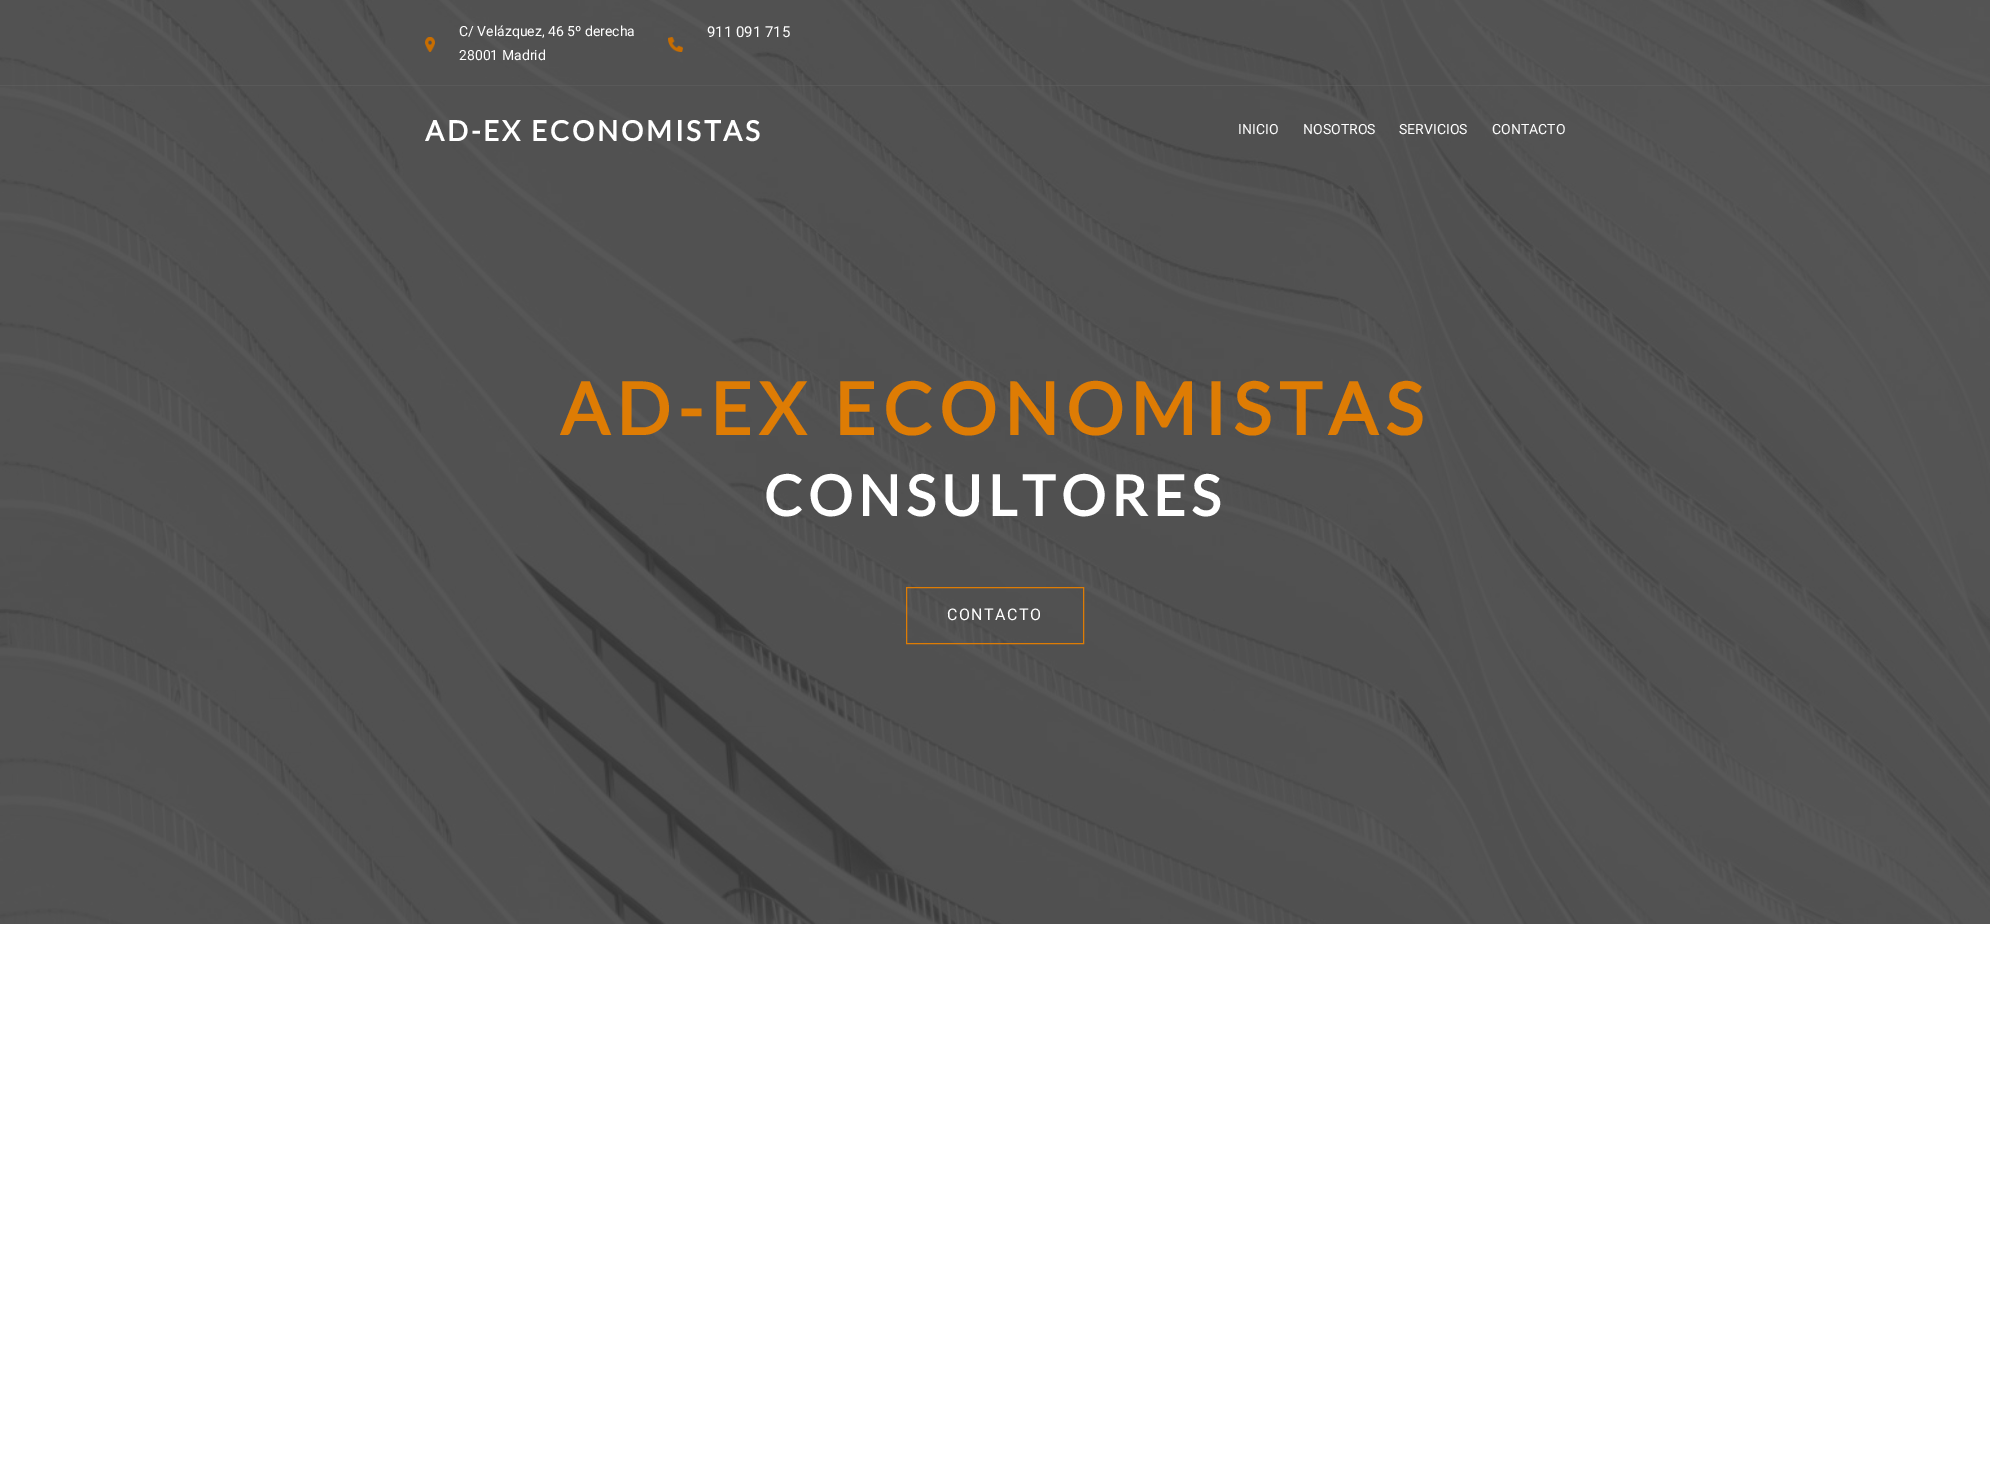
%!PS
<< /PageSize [1990 1478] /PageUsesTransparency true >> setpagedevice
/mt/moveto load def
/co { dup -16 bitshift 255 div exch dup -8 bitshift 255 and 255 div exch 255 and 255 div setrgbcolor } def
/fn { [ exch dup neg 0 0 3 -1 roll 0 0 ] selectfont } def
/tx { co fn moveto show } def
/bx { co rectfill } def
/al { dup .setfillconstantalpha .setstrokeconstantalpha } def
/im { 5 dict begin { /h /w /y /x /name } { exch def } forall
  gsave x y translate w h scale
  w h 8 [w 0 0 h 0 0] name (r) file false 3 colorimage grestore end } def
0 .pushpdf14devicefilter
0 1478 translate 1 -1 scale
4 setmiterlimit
0 0 1990 1478 16#FFFFFF bx
(media/1.raw) 0 0 1990 924 im
(media/2.raw) 425 37 10 15 im
(media/3.raw) 668 37 15 15 im
0.4 al
0 85 1990 1 16#666666 bx
1 al
16#DE7C04 co
906.5 587.5 177 56 rectstroke
(C/ Velázquez, 46 5º derecha) 459 36 /Roboto-Regular 14 16#FFFFFF tx
(28001 Madrid) 459 60 /Roboto-Regular 14 16#FFFFFF tx
(911 091 715) 707 37 /Roboto-Regular 15 16#FFFFFF tx
/Lato-Bold 28 fn
425 141 mt 2.75 0 (AD-EX ECONOMISTAS) ashow
(INICIO) 1238 134 /Heebo-Regular 14 16#FFFFFF tx
(NOSOTROS) 1303 134 /Heebo-Regular 14 16#FFFFFF tx
(SERVICIOS) 1399 134 /Heebo-Regular 14 16#FFFFFF tx
(CONTACTO) 1492 134 /Heebo-Regular 14 16#FFFFFF tx
/Lato-Bold 72 fn
16#DE7C04 co
560 435 mt 7.25 0 (AD-EX ECONOMISTAS) ashow
/Lato-Bold 56 fn
16#FFFFFF co
764 516 mt 5.6 0 (CONSULTORES) ashow
/Heebo-Regular 16 fn
947 620 mt 1.5 0 (CONTACTO) ashow
.poppdf14devicefilter showpage
